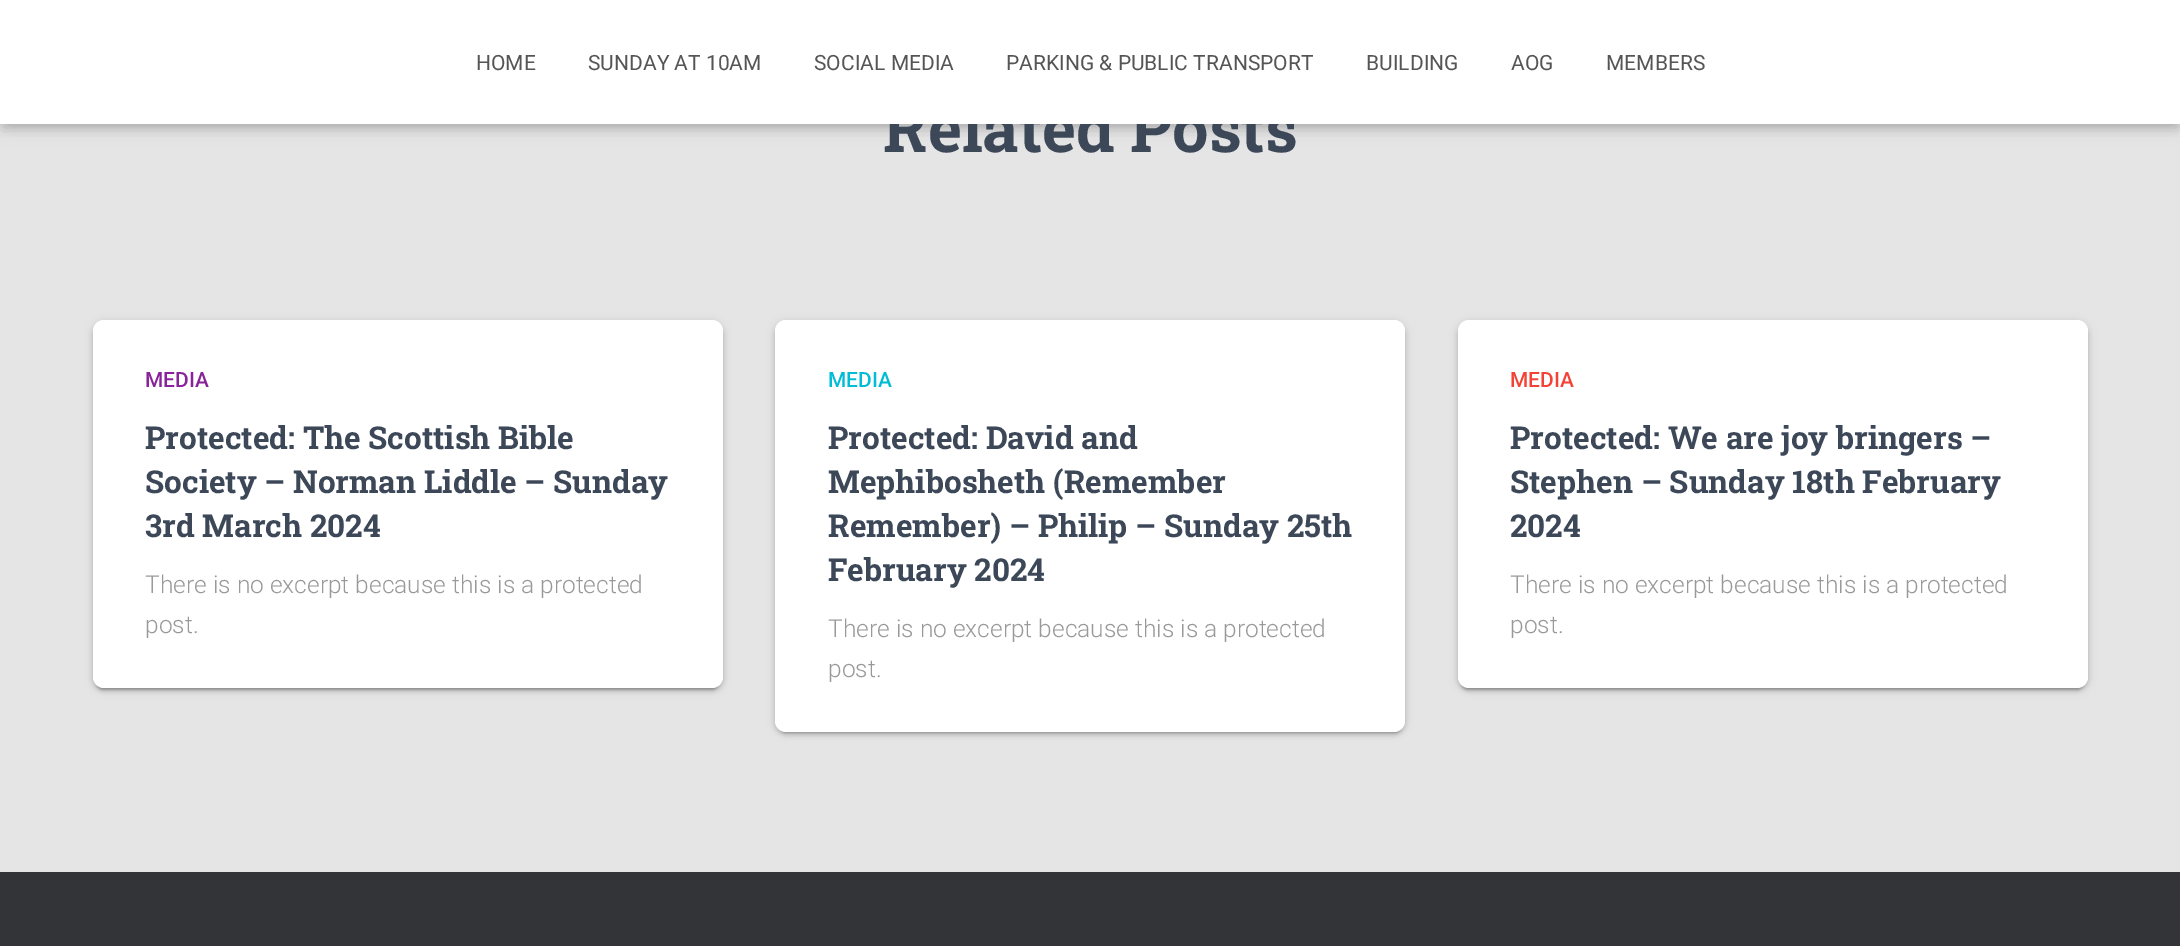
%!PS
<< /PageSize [2180 946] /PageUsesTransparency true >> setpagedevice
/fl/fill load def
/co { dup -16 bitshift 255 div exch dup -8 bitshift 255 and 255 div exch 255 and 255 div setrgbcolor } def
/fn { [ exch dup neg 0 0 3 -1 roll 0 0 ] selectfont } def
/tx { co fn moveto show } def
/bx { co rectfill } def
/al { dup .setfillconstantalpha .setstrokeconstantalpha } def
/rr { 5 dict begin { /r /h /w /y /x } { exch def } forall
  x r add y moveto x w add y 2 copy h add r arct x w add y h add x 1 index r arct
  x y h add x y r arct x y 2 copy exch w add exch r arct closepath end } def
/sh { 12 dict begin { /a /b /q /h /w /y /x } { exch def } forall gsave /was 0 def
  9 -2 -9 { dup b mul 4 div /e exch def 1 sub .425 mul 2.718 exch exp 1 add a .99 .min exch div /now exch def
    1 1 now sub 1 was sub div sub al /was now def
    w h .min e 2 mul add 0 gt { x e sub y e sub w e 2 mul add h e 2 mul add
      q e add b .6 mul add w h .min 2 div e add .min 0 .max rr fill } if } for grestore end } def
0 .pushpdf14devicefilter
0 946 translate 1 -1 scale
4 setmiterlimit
0 0 2180 946 16#E5E5E5 bx
16#000000 co
4 11 2173 117 0 4.5 .1 sh
0 2 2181 124 0 9 .12 sh
11 12 2159 104 0 9 .42 sh
93 322 630 368 11 4.5 .12 sh
96 329 623 361 7 1 .2 sh
93 324 630 367 11 2 .14 sh
16#FFFFFF co
93 320 630 368 11 rr fl
16#000000 co
775 322 630 411 11 4.5 .12 sh
779 329 623 404 7 1 .2 sh
775 324 630 411 11 2 .14 sh
16#FFFFFF co
775 320 630 412 11 rr fl
16#000000 co
1458 322 630 368 11 4.5 .12 sh
1461 329 623 361 7 1 .2 sh
1458 324 630 367 11 2 .14 sh
16#FFFFFF co
1458 320 630 368 11 rr fl
0 872 2180 74 16#323437 bx
(Related Posts) 883 152 /RobotoSlab-Bold 64.75 16#3C4858 tx
0 0 2180 124 16#FFFFFF bx
(MEMBERS) 1606 70 /Roboto-Regular 21 16#555555 tx
(AOG) 1511 70 /Roboto-Regular 21 16#555555 tx
(BUILDING) 1366 70 /Roboto-Regular 21 16#555555 tx
(PARKING & PUBLIC TRANSPORT) 1006 70 /Roboto-Regular 21 16#555555 tx
(SOCIAL MEDIA) 814 70 /Roboto-Regular 21 16#555555 tx
(SUNDAY AT 10AM) 588 70 /Roboto-Regular 21 16#555555 tx
(HOME) 476 70 /Roboto-Regular 21 16#555555 tx
(MEDIA) 145 387 /Roboto-Medium 21 16#89229B tx
(Protected: The Scottish Bible) 145 449 /RobotoSlab-Bold 31.5 16#3C4858 tx
(Society – Norman Liddle – Sunday) 145 493 /RobotoSlab-Bold 31.5 16#3C4858 tx
(3rd March 2024) 145 537 /RobotoSlab-Bold 31.5 16#3C4858 tx
(There is no excerpt because this is a protected) 145 593 /Roboto-Light 24.5 16#999999 tx
(post.) 145 633 /Roboto-Light 24.5 16#999999 tx
(MEDIA) 828 387 /Roboto-Medium 21 16#00BCD4 tx
(Protected: David and) 828 449 /RobotoSlab-Bold 31.5 16#3C4858 tx
(Mephibosheth \(Remember) 828 493 /RobotoSlab-Bold 31.5 16#3C4858 tx
(Remember\) – Philip – Sunday 25th) 828 537 /RobotoSlab-Bold 31.5 16#3C4858 tx
(February 2024) 828 581 /RobotoSlab-Bold 31.5 16#3C4858 tx
(There is no excerpt because this is a protected) 828 637 /Roboto-Light 24.5 16#999999 tx
(post.) 828 677 /Roboto-Light 24.5 16#999999 tx
(MEDIA) 1510 387 /Roboto-Medium 21 16#F44336 tx
(Protected: We are joy bringers –) 1510 449 /RobotoSlab-Bold 31.5 16#3C4858 tx
(Stephen – Sunday 18th February) 1510 493 /RobotoSlab-Bold 31.5 16#3C4858 tx
(2024) 1510 537 /RobotoSlab-Bold 31.5 16#3C4858 tx
(There is no excerpt because this is a protected) 1510 593 /Roboto-Light 24.5 16#999999 tx
(post.) 1510 633 /Roboto-Light 24.5 16#999999 tx
.poppdf14devicefilter showpage
